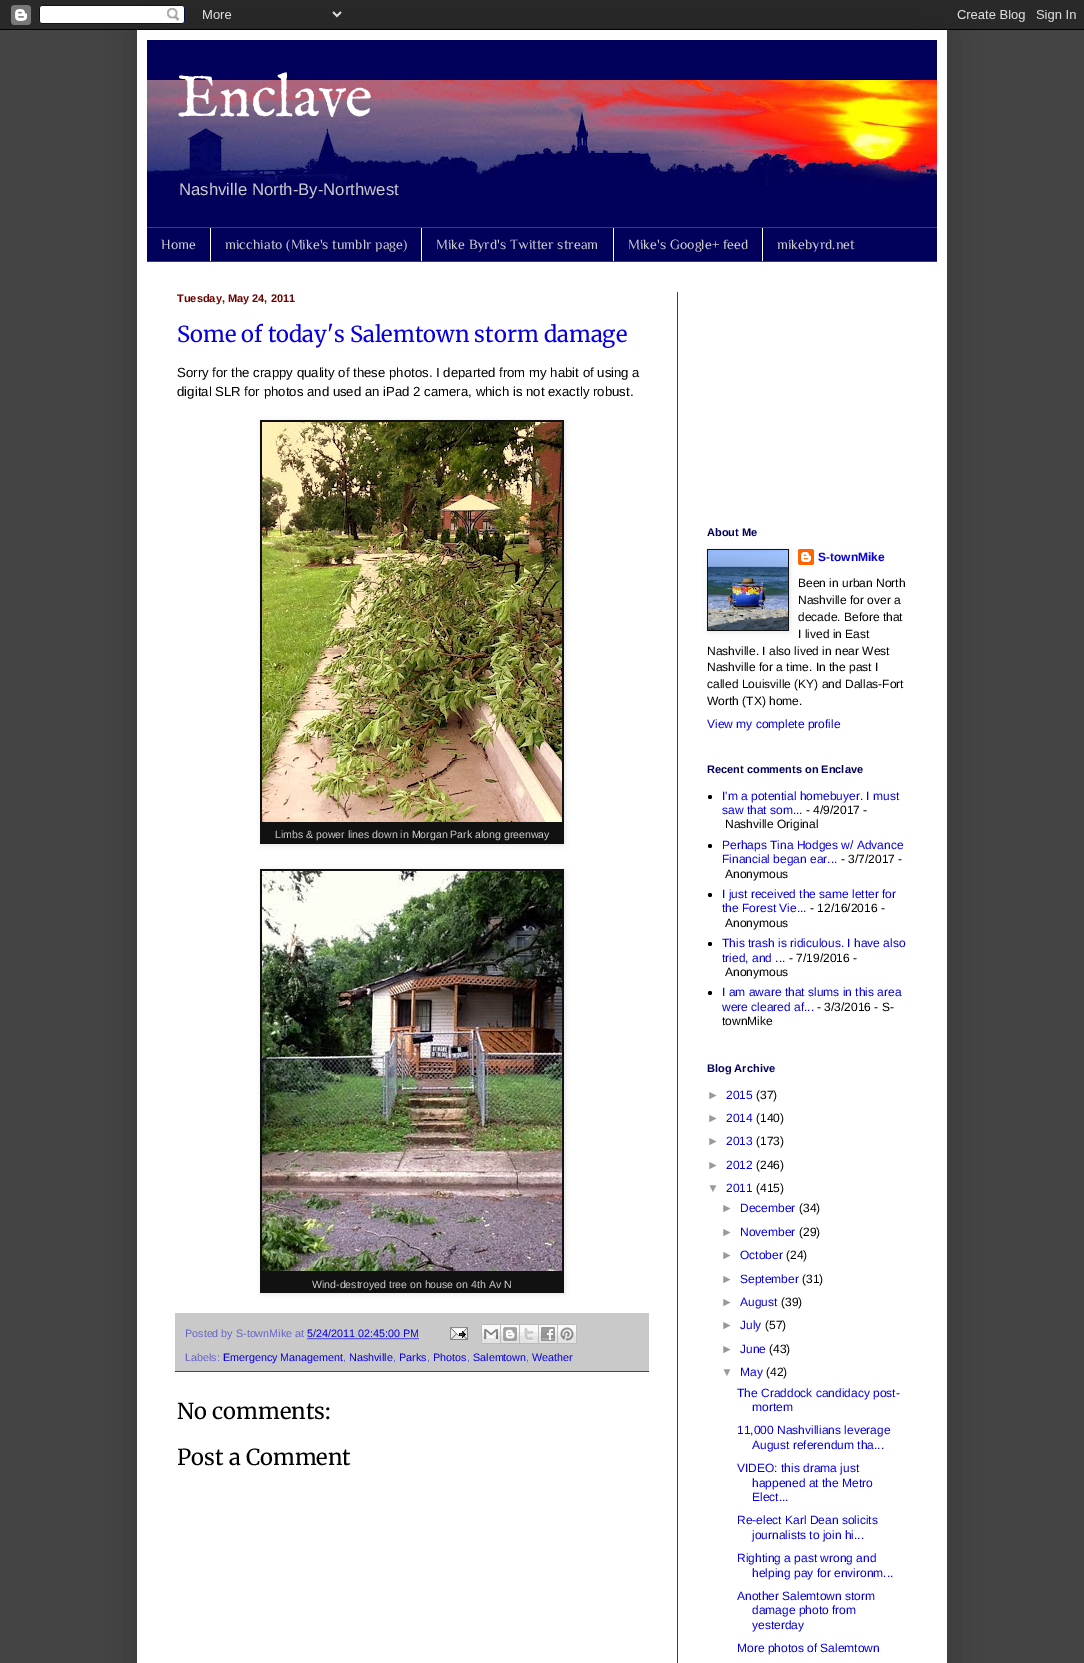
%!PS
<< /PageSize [1084 1663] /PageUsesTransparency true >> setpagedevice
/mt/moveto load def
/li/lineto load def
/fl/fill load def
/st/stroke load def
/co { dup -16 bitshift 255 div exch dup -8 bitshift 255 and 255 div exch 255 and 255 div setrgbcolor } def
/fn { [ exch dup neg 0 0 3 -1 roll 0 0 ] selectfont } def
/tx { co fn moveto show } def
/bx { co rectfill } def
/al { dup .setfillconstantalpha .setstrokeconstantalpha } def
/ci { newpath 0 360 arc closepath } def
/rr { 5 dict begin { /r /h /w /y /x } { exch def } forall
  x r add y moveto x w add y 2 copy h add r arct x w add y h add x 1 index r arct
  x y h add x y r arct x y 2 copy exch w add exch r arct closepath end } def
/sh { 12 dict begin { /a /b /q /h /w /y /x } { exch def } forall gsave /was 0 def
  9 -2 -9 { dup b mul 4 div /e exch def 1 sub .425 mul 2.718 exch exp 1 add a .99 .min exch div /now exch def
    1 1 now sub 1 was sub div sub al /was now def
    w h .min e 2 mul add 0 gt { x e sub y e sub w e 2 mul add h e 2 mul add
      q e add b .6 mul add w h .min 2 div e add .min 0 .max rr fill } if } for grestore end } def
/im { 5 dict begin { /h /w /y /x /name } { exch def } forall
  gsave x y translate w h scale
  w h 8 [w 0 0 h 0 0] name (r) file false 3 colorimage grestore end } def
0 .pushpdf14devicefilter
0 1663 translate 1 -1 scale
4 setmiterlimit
0 0 1084 1663 16#444444 bx
16#000000 co
137 30 810 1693 0 20 .15 sh
(media/1.raw) 0 0 1084 30 im
137 30 810 1633 16#FFFFFF bx
147 40 790 187 16#01015B bx
(media/2.raw) 147 80 790 106 im
147 228 790 33 16#01015B bx
147 227 790 1 16#404040 bx
147 261 790 1 16#404040 bx
210 228 1 33 16#FFFFFF bx
421 228 1 33 16#FFFFFF bx
613 228 1 33 16#FFFFFF bx
762 228 1 33 16#FFFFFF bx
677 292 1 1371 16#404040 bx
16#000000 co
261 421 304 424 0 2.5 .1 sh
260 420 304 424 16#111111 bx
(media/3.raw) 262 422 300 400 im
16#000000 co
261 870 304 424 0 2.5 .1 sh
260 869 304 424 16#111111 bx
(media/4.raw) 262 871 300 400 im
175 1313 474 58 16#C9C9C9 bx
175 1371 474 1 16#444444 bx
16#0700DD co
[1 1] 0 setdash
307.5 1338.5 mt 419.5 1338.5 li st
(media/5.raw) 450 1327 18 13 im
(media/6.raw) 481 1324 20 20 im
(media/7.raw) 501 1324 19 20 im
(media/8.raw) 520 1324 19 20 im
(media/9.raw) 539 1324 19 20 im
(media/10.raw) 558 1324 19 20 im
(media/12.raw) 798 549 16 16 im
16#000000 co
708 550 82 82 0 2.5 .1 sh
707 549 82 82 16#111111 bx
(media/11.raw) 708 550 80 80 im
16#000000 co
710 797 2 ci fl
710 846 2 ci fl
710 895 2 ci fl
710 944 2 ci fl
710 993 2 ci fl
(Enclave) 177 116 /IMFELLEnglish-Regular 60 16#FFFFFF tx
(Nashville North-By-Northwest) 179 195 /LiberationSans-Regular 16.75 16#CCCCCC tx
(Home) 161 249 /Philosopher-Regular 14 16#CCCCCC tx
(micchiato \(Mike's tumblr page\)) 225 249 /Philosopher-Regular 14 16#CCCCCC tx
(Mike Byrd's Twitter stream) 436 249 /Philosopher-Regular 14 16#CCCCCC tx
(Mike's Google+ feed) 628 249 /Philosopher-Regular 14 16#CCCCCC tx
(mikebyrd.net) 777 249 /Philosopher-Regular 14 16#CCCCCC tx
(Tuesday, May 24, 2011) 177 302 /LiberationSans-Bold 11 16#6E0300 tx
(Some of today's Salemtown storm damage) 177 342 /Merriweather-Light 22 16#0700DD tx
(Sorry for the crappy quality of these photos. I departed from my habit of using a) 177 377 /LiberationSans-Regular 13.2 16#000000 tx
(digital SLR for photos and used an iPad 2 camera, which is not exactly robust.) 177 396 /LiberationSans-Regular 13.2 16#000000 tx
(Limbs & power lines down in Morgan Park along greenway) 275 838 /LiberationSans-Regular 10.55 16#CCCCCC tx
(Wind-destroyed tree on house on 4th Av N) 312 1288 /LiberationSans-Regular 10.55 16#CCCCCC tx
(Posted by S-townMike at) 185 1337 /LiberationSans-Regular 10.75 16#6562C7 tx
(5/24/2011 02:45:00 PM) 307 1337 /LiberationSans-Regular 10.75 16#0700DD tx
(Labels:) 185 1361 /LiberationSans-Regular 10.75 16#6562C7 tx
(Emergency Management) 223 1361 /LiberationSans-Regular 10.75 16#0700DD tx
(,) 343 1361 /LiberationSans-Regular 10.75 16#6562C7 tx
(Nashville) 349 1361 /LiberationSans-Regular 10.75 16#0700DD tx
(,) 393 1361 /LiberationSans-Regular 10.75 16#6562C7 tx
(Parks) 399 1361 /LiberationSans-Regular 10.75 16#0700DD tx
(,) 427 1361 /LiberationSans-Regular 10.75 16#6562C7 tx
(Photos) 433 1361 /LiberationSans-Regular 10.75 16#0700DD tx
(,) 467 1361 /LiberationSans-Regular 10.75 16#6562C7 tx
(Salemtown) 473 1361 /LiberationSans-Regular 10.75 16#0700DD tx
(,) 526 1361 /LiberationSans-Regular 10.75 16#6562C7 tx
(Weather) 532 1361 /LiberationSans-Regular 10.75 16#0700DD tx
(No comments:) 177 1419 /Merriweather-Light 22 16#000000 tx
(Post a Comment) 177 1465 /Merriweather-Light 22 16#000000 tx
(About Me) 707 536 /LiberationSans-Bold 11 16#01015B tx
(S-townMike) 818 561 /LiberationSans-Bold 12 16#0700DD tx
(Been in urban North) 798 587 /LiberationSans-Regular 12 16#000000 tx
(Nashville for over a) 798 604 /LiberationSans-Regular 12 16#000000 tx
(decade. Before that) 798 621 /LiberationSans-Regular 12 16#000000 tx
(I lived in East) 798 638 /LiberationSans-Regular 12 16#000000 tx
(Nashville. I also lived in near West) 707 655 /LiberationSans-Regular 12 16#000000 tx
(Nashville for a time. In the past I) 707 671 /LiberationSans-Regular 12 16#000000 tx
(called Louisville \(KY\) and Dallas-Fort) 707 688 /LiberationSans-Regular 12 16#000000 tx
(Worth \(TX\) home.) 707 705 /LiberationSans-Regular 12 16#000000 tx
(View my complete profile) 707 728 /LiberationSans-Regular 12 16#0700DD tx
(Recent comments on Enclave) 707 773 /LiberationSans-Bold 11 16#01015B tx
(I'm a potential homebuyer. I must) 722 800 /LiberationSans-Regular 12 16#0700DD tx
(saw that som...) 722 814 /LiberationSans-Regular 12 16#0700DD tx
(- 4/9/2017 -) 806 814 /LiberationSans-Regular 12 16#000000 tx
(Nashville Original) 725 828 /LiberationSans-Regular 12 16#000000 tx
(Perhaps Tina Hodges w/ Advance) 722 849 /LiberationSans-Regular 12 16#0700DD tx
(Financial began ear...) 722 863 /LiberationSans-Regular 12 16#0700DD tx
(- 3/7/2017 -) 841 863 /LiberationSans-Regular 12 16#000000 tx
(Anonymous) 725 878 /LiberationSans-Regular 12 16#000000 tx
(I just received the same letter for) 722 898 /LiberationSans-Regular 12 16#0700DD tx
(the Forest Vie...) 722 912 /LiberationSans-Regular 12 16#0700DD tx
(- 12/16/2016 -) 810 912 /LiberationSans-Regular 12 16#000000 tx
(Anonymous) 725 927 /LiberationSans-Regular 12 16#000000 tx
(This trash is ridiculous. I have also) 722 947 /LiberationSans-Regular 12 16#0700DD tx
(tried, and ...) 722 962 /LiberationSans-Regular 12 16#0700DD tx
(- 7/19/2016 -) 789 962 /LiberationSans-Regular 12 16#000000 tx
(Anonymous) 725 976 /LiberationSans-Regular 12 16#000000 tx
(I am aware that slums in this area) 722 996 /LiberationSans-Regular 12 16#0700DD tx
(were cleared af...) 722 1011 /LiberationSans-Regular 12 16#0700DD tx
(- 3/3/2016 - S-) 817 1011 /LiberationSans-Regular 12 16#000000 tx
(townMike) 722 1025 /LiberationSans-Regular 12 16#000000 tx
(Blog Archive) 707 1072 /LiberationSans-Bold 11 16#01015B tx
(►) 707 1099 /LiberationSans-Regular 12 16#999999 tx
(2015) 726 1099 /LiberationSans-Regular 12 16#0700DD tx
(\(37\)) 756 1099 /LiberationSans-Regular 12 16#000000 tx
(►) 707 1122 /LiberationSans-Regular 12 16#999999 tx
(2014) 726 1122 /LiberationSans-Regular 12 16#0700DD tx
(\(140\)) 756 1122 /LiberationSans-Regular 12 16#000000 tx
(►) 707 1145 /LiberationSans-Regular 12 16#999999 tx
(2013) 726 1145 /LiberationSans-Regular 12 16#0700DD tx
(\(173\)) 756 1145 /LiberationSans-Regular 12 16#000000 tx
(►) 707 1169 /LiberationSans-Regular 12 16#999999 tx
(2012) 726 1169 /LiberationSans-Regular 12 16#0700DD tx
(\(246\)) 756 1169 /LiberationSans-Regular 12 16#000000 tx
(▼) 707 1192 /LiberationSans-Regular 12 16#999999 tx
(2011) 726 1192 /LiberationSans-Regular 12 16#0700DD tx
(\(415\)) 756 1192 /LiberationSans-Regular 12 16#000000 tx
(►) 721 1212 /LiberationSans-Regular 12 16#999999 tx
(December) 740 1212 /LiberationSans-Regular 12 16#0700DD tx
(\(34\)) 799 1212 /LiberationSans-Regular 12 16#000000 tx
(►) 721 1236 /LiberationSans-Regular 12 16#999999 tx
(November) 740 1236 /LiberationSans-Regular 12 16#0700DD tx
(\(29\)) 799 1236 /LiberationSans-Regular 12 16#000000 tx
(►) 721 1259 /LiberationSans-Regular 12 16#999999 tx
(October) 740 1259 /LiberationSans-Regular 12 16#0700DD tx
(\(24\)) 786 1259 /LiberationSans-Regular 12 16#000000 tx
(►) 721 1283 /LiberationSans-Regular 12 16#999999 tx
(September) 740 1283 /LiberationSans-Regular 12 16#0700DD tx
(\(31\)) 802 1283 /LiberationSans-Regular 12 16#000000 tx
(►) 721 1306 /LiberationSans-Regular 12 16#999999 tx
(August) 740 1306 /LiberationSans-Regular 12 16#0700DD tx
(\(39\)) 781 1306 /LiberationSans-Regular 12 16#000000 tx
(►) 721 1329 /LiberationSans-Regular 12 16#999999 tx
(July) 740 1329 /LiberationSans-Regular 12 16#0700DD tx
(\(57\)) 765 1329 /LiberationSans-Regular 12 16#000000 tx
(►) 721 1353 /LiberationSans-Regular 12 16#999999 tx
(June) 740 1353 /LiberationSans-Regular 12 16#0700DD tx
(\(43\)) 769 1353 /LiberationSans-Regular 12 16#000000 tx
(▼) 721 1376 /LiberationSans-Regular 12 16#999999 tx
(May) 740 1376 /LiberationSans-Regular 12 16#0700DD tx
(\(42\)) 766 1376 /LiberationSans-Regular 12 16#000000 tx
(The Craddock candidacy post-) 737 1397 /LiberationSans-Regular 12 16#0700DD tx
(mortem) 752 1411 /LiberationSans-Regular 12 16#0700DD tx
(11,000 Nashvillians leverage) 737 1434 /LiberationSans-Regular 12 16#0700DD tx
(August referendum tha...) 752 1449 /LiberationSans-Regular 12 16#0700DD tx
(VIDEO: this drama just) 737 1472 /LiberationSans-Regular 12 16#0700DD tx
(happened at the Metro) 752 1487 /LiberationSans-Regular 12 16#0700DD tx
(Elect...) 752 1501 /LiberationSans-Regular 12 16#0700DD tx
(Re-elect Karl Dean solicits) 737 1524 /LiberationSans-Regular 12 16#0700DD tx
(journalists to join hi...) 752 1539 /LiberationSans-Regular 12 16#0700DD tx
(Righting a past wrong and) 737 1562 /LiberationSans-Regular 12 16#0700DD tx
(helping pay for environm...) 752 1577 /LiberationSans-Regular 12 16#0700DD tx
(Another Salemtown storm) 737 1600 /LiberationSans-Regular 12 16#0700DD tx
(damage photo from) 752 1614 /LiberationSans-Regular 12 16#0700DD tx
(yesterday) 752 1629 /LiberationSans-Regular 12 16#0700DD tx
(More photos of Salemtown) 737 1652 /LiberationSans-Regular 12 16#0700DD tx
.poppdf14devicefilter showpage
